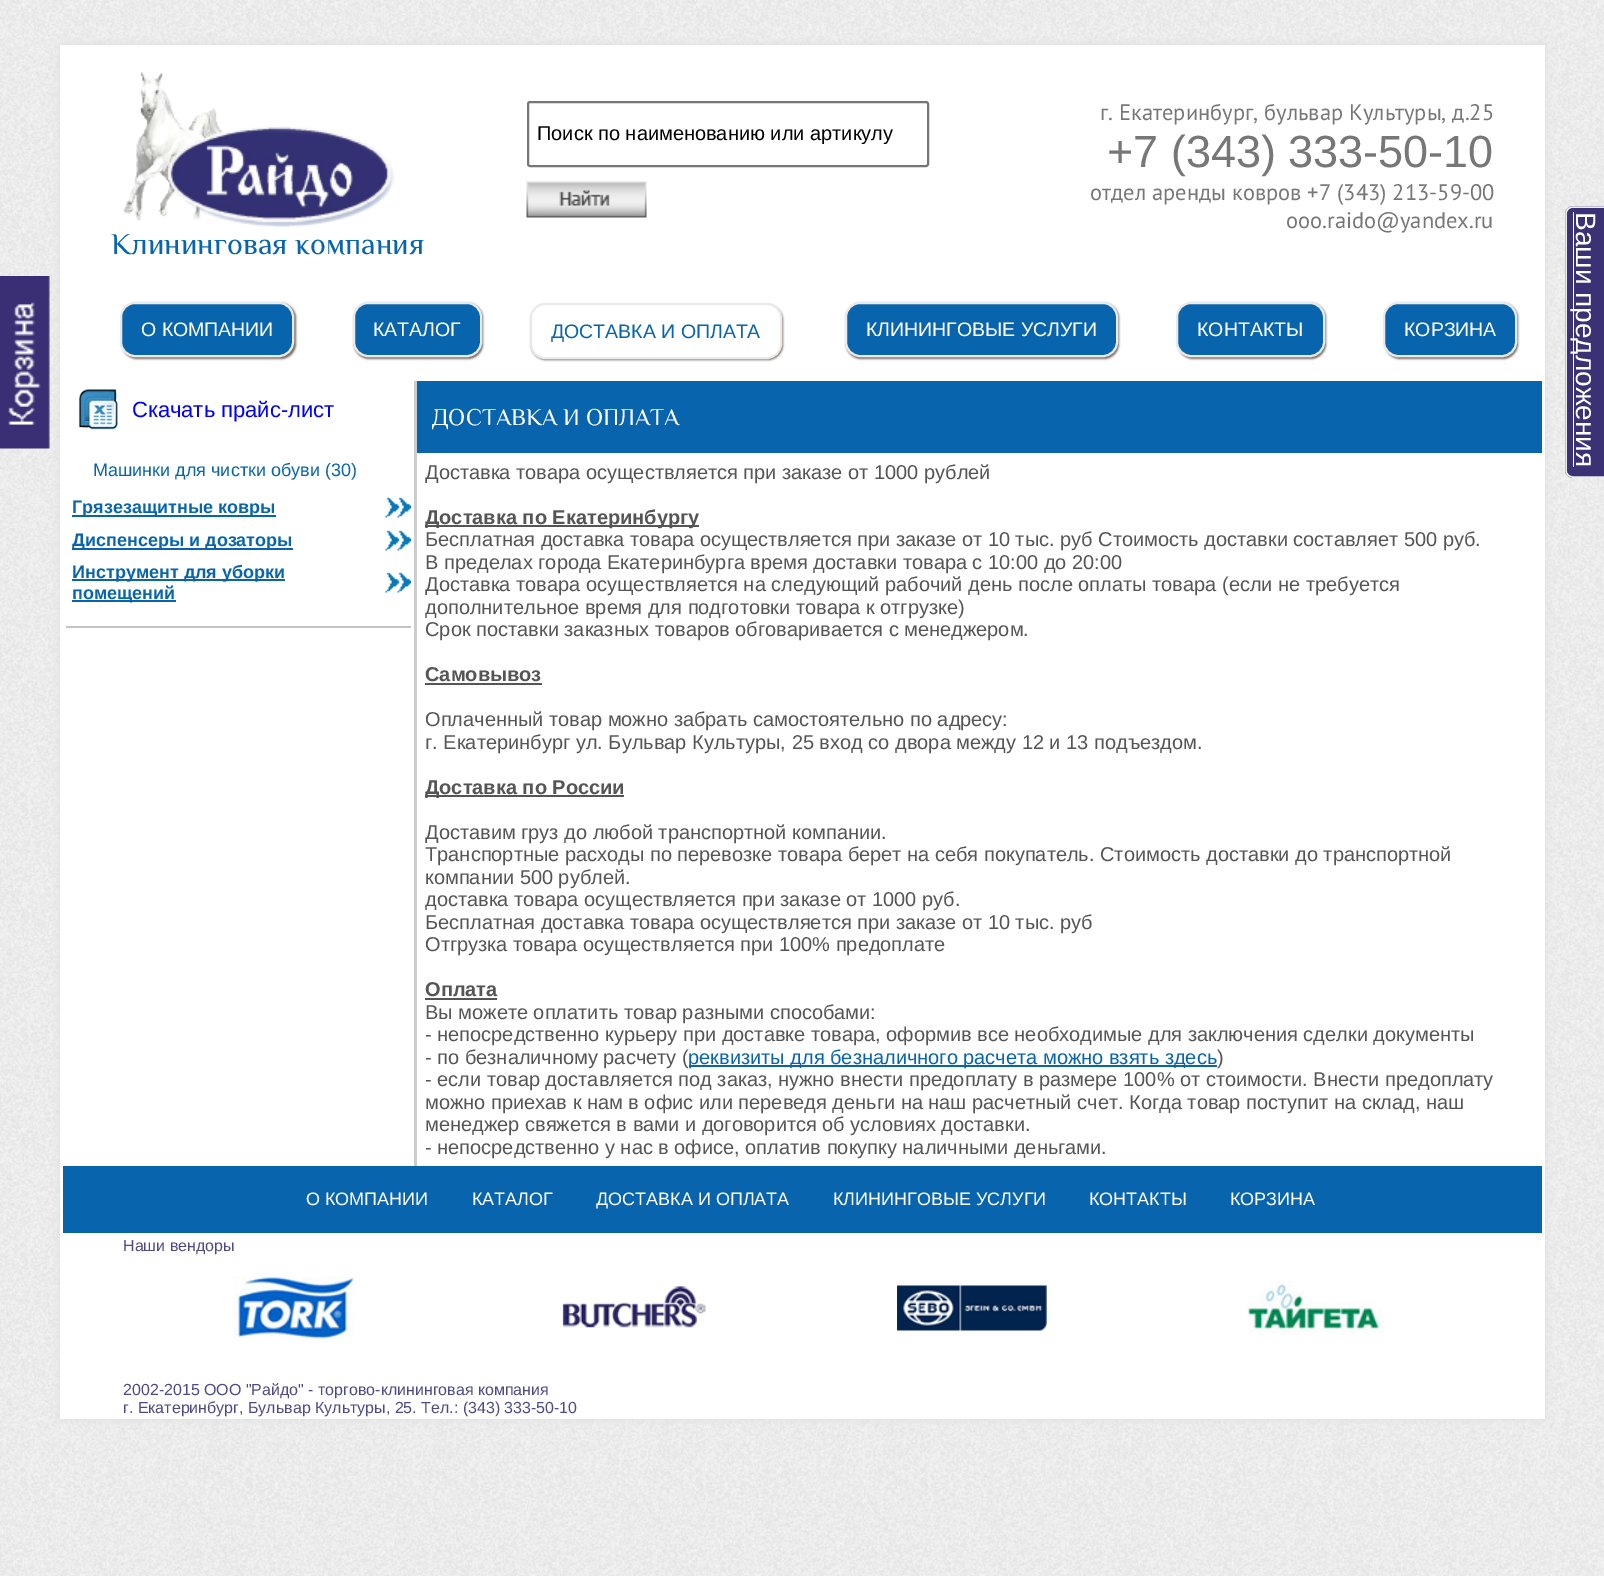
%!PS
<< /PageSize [1604 1576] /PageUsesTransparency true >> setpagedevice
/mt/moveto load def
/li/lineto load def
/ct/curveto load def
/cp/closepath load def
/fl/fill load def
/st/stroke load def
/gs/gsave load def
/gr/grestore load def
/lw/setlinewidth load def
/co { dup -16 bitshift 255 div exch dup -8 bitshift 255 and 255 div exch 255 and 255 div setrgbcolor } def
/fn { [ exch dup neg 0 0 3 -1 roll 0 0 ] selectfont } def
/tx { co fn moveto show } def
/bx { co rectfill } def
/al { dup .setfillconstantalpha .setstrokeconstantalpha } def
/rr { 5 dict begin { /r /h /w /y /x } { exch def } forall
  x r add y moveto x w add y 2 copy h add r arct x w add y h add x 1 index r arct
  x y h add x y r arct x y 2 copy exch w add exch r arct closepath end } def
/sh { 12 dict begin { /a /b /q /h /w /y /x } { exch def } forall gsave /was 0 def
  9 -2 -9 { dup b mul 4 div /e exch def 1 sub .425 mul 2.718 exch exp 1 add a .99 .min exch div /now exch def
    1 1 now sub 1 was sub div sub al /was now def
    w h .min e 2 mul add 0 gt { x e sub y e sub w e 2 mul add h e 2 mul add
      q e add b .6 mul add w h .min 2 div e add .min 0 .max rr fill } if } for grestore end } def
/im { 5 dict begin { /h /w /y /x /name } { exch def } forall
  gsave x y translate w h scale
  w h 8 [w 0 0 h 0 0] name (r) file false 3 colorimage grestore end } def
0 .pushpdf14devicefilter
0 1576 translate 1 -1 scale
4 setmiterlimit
0 0 1604 1576 16#FFFFFF bx
(media/1.raw) 0 0 1604 1576 im
16#DDDDDD co
60 45 1485 1374 0 4 1 sh
(media/2.raw) 0 276 50 173 im
60 45 1485 1374 16#FFFFFF bx
16#767676 co
2 lw
528 102 400 64 2 rr st
(media/3.raw) 526 181 121 37 im
(media/4.raw) 123 72 272 155 im
16#776A64 co
122 303 174 56 15 1 1 sh
16#0864AC co
121 303 172 53 14 rr gs fl gr
16#EAEAEA co
st
16#776A64 co
354 303 129 56 15 1 1 sh
16#0864AC co
354 303 127 53 14 rr gs fl gr
16#EAEAEA co
st
16#776A64 co
531 305 252 55 15 1 1 sh
16#FFFFFF co
531 304 250 54 14 rr gs fl gr
16#EAEAEA co
st
16#776A64 co
846 303 273 56 15 1 1 sh
16#0864AC co
846 303 271 53 14 rr gs fl gr
16#EAEAEA co
st
16#776A64 co
1178 303 148 56 15 1 1 sh
16#0864AC co
1177 303 147 53 14 rr gs fl gr
16#EAEAEA co
st
16#776A64 co
1385 303 133 56 15 1 1 sh
16#0864AC co
1384 303 132 53 14 rr gs fl gr
16#EAEAEA co
st
414 381 3 785 16#CCCCCC bx
(media/5.raw) 78 388 40 42 im
66 626 345 2 16#C4C4C4 bx
72 515 204 2 16#0864AC bx
(media/6.raw) 385 497 26 21 im
72 548 221 2 16#0864AC bx
(media/6.raw) 385 530 26 21 im
72 579 213 2 16#0864AC bx
72 600 104 2 16#0864AC bx
(media/6.raw) 385 572 26 21 im
417 381 1125 72 16#0864AC bx
425 525 274 2 16#555555 bx
425 683 117 2 16#555555 bx
425 795 199 2 16#555555 bx
425 998 72 2 16#555555 bx
689 1065 528 2 16#0864AC bx
63 1166 1479 67 16#0864AC bx
(media/7.raw) 234 1276 121 64 im
(media/8.raw) 562 1286 144 42 im
(media/9.raw) 897 1285 150 46 im
(media/10.raw) 1247 1281 137 53 im
16#3B3175 co
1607 206 mt 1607 478 li 1573 478 li 1569 478 1565 474 1565 470 ct 1565 214 li 1565 210 1569 206 1573 206 ct cp fl
16#EEEEEE co
1.5 lw
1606.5 207 mt 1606.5 477 li 1573 477 li 1569 477 1566 474 1566 470 ct 1566 214 li 1566 210 1569 207 1573 207 ct cp st
1573 212 1 255 16#FFFFFF bx
gs
537 122 381 22 rectclip
(Поиск по наименованию или артикулу) 537 140 /LiberationSans-Regular 20 16#000000 tx
gr
(г. Екатеринбург, бульвар Культуры, д.25) 1100 120 /PTSans-Regular 22.5 16#777777 tx
(+7 \(343\) 333-50-10) 1107 167 /LiberationSans-Regular 45 16#777777 tx
(отдел аренды ковров +7 \(343\) 213-59-00) 1090 200 /PTSans-Regular 22.5 16#777777 tx
(ooo.raido@yandex.ru) 1286 228 /PTSans-Regular 22.5 16#777777 tx
(Клининговая компания) 111 254 /Philosopher-Regular 30 16#0864AC tx
(О КОМПАНИИ) 141 336 /LiberationSans-Regular 19.5 16#FFFFFF tx
(КАТАЛОГ) 373 336 /LiberationSans-Regular 19.5 16#FFFFFF tx
(ДОСТАВКА И ОПЛАТА) 551 338 /LiberationSans-Regular 19.5 16#0864AC tx
(КЛИНИНГОВЫЕ УСЛУГИ) 866 336 /LiberationSans-Regular 19.5 16#FFFFFF tx
(КОНТАКТЫ) 1197 336 /LiberationSans-Regular 19.5 16#FFFFFF tx
(КОРЗИНА) 1404 336 /LiberationSans-Regular 19.5 16#FFFFFF tx
(Скачать прайс-лист) 132 417 /LiberationSans-Regular 22 16#0000FF tx
(Машинки для чистки обуви \(30\)) 93 476 /LiberationSans-Regular 18 16#0864AC tx
(Грязезащитные ковры) 72 513 /LiberationSans-Bold 18 16#0864AC tx
(Диспенсеры и дозаторы) 72 546 /LiberationSans-Bold 18 16#0864AC tx
(Инструмент для уборки) 72 578 /LiberationSans-Bold 18 16#0864AC tx
(помещений) 72 599 /LiberationSans-Bold 18 16#0864AC tx
(ДОСТАВКА И ОПЛАТА) 432 425 /Philosopher-Regular 24 16#FFFFFF tx
(Доставка товара осуществляется при заказе от 1000 рублей) 425 479 /LiberationSans-Regular 20 16#555555 tx
(Доставка по Екатеринбургу) 425 524 /LiberationSans-Bold 20 16#555555 tx
(Бесплатная доставка товара осуществляется при заказе от 10 тыс. руб Стоимость доставки составляет 500 руб.) 425 546 /LiberationSans-Regular 20 16#555555 tx
(В пределах города Екатеринбурга время доставки товара с 10:00 до 20:00) 425 569 /LiberationSans-Regular 20 16#555555 tx
(Доставка товара осуществляется на следующий рабочий день после оплаты товара \(если не требуется) 425 591 /LiberationSans-Regular 20 16#555555 tx
(дополнительное время для подготовки товара к отгрузке\)) 425 614 /LiberationSans-Regular 20 16#555555 tx
(Срок поставки заказных товаров обговаривается с менеджером.) 425 636 /LiberationSans-Regular 20 16#555555 tx
(Самовывоз) 425 681 /LiberationSans-Bold 20 16#555555 tx
(Оплаченный товар можно забрать самостоятельно по адресу:) 425 726 /LiberationSans-Regular 20 16#555555 tx
(г. Екатеринбург ул. Бульвар Культуры, 25 вход со двора между 12 и 13 подъездом.) 425 749 /LiberationSans-Regular 20 16#555555 tx
(Доставка по России) 425 794 /LiberationSans-Bold 20 16#555555 tx
(Доставим груз до любой транспортной компании.) 425 839 /LiberationSans-Regular 20 16#555555 tx
(Транспортные расходы по перевозке товара берет на себя покупатель. Стоимость доставки до транспортной) 425 861 /LiberationSans-Regular 20 16#555555 tx
(компании 500 рублей.) 425 884 /LiberationSans-Regular 20 16#555555 tx
(доставка товара осуществляется при заказе от 1000 руб.) 425 906 /LiberationSans-Regular 20 16#555555 tx
(Бесплатная доставка товара осуществляется при заказе от 10 тыс. руб) 425 929 /LiberationSans-Regular 20 16#555555 tx
(Отгрузка товара осуществляется при 100% предоплате) 425 951 /LiberationSans-Regular 20 16#555555 tx
(Оплата) 425 996 /LiberationSans-Bold 20 16#555555 tx
(Вы можете оплатить товар разными способами:) 425 1019 /LiberationSans-Regular 20 16#555555 tx
(- непосредственно курьеру при доставке товара, оформив все необходимые для заключения сделки документы) 425 1041 /LiberationSans-Regular 20 16#555555 tx
(- по безналичному расчету \() 425 1064 /LiberationSans-Regular 20 16#555555 tx
(реквизиты для безналичного расчета можно взять здесь) 688 1064 /LiberationSans-Regular 20 16#0864AC tx
(\)) 1217 1064 /LiberationSans-Regular 20 16#555555 tx
(- если товар доставляется под заказ, нужно внести предоплату в размере 100% от стоимости. Внести предоплату) 425 1086 /LiberationSans-Regular 20 16#555555 tx
(можно приехав к нам в офис или переведя деньги на наш расчетный счет. Когда товар поступит на склад, наш) 425 1109 /LiberationSans-Regular 20 16#555555 tx
(менеджер свяжется в вами и договорится об условиях доставки.) 425 1131 /LiberationSans-Regular 20 16#555555 tx
(- непосредственно у нас в офисе, оплатив покупку наличными деньгами.) 425 1154 /LiberationSans-Regular 20 16#555555 tx
(О КОМПАНИИ) 306 1205 /LiberationSans-Regular 18 16#FFFFFF tx
(КАТАЛОГ) 472 1205 /LiberationSans-Regular 18 16#FFFFFF tx
(ДОСТАВКА И ОПЛАТА) 596 1205 /LiberationSans-Regular 18 16#FFFFFF tx
(КЛИНИНГОВЫЕ УСЛУГИ) 833 1205 /LiberationSans-Regular 18 16#FFFFFF tx
(КОНТАКТЫ) 1089 1205 /LiberationSans-Regular 18 16#FFFFFF tx
(КОРЗИНА) 1230 1205 /LiberationSans-Regular 18 16#FFFFFF tx
(Наши вендоры) 123 1251 /LiberationSans-Regular 16 16#4C4B88 tx
(2002-2015 ООО "Райдо" - торгово-клининговая компания) 123 1395 /LiberationSans-Regular 16 16#4C4B88 tx
(г. Екатеринбург, Бульвар Культуры, 25. Тел.: \(343\) 333-50-10) 123 1413 /LiberationSans-Regular 16 16#4C4B88 tx
/LiberationSans-Regular 28 fn
16#FFFFFF co
gs 1576 212 translate 90 rotate 0 0 mt (Ваши предложения) show gr
.poppdf14devicefilter showpage
